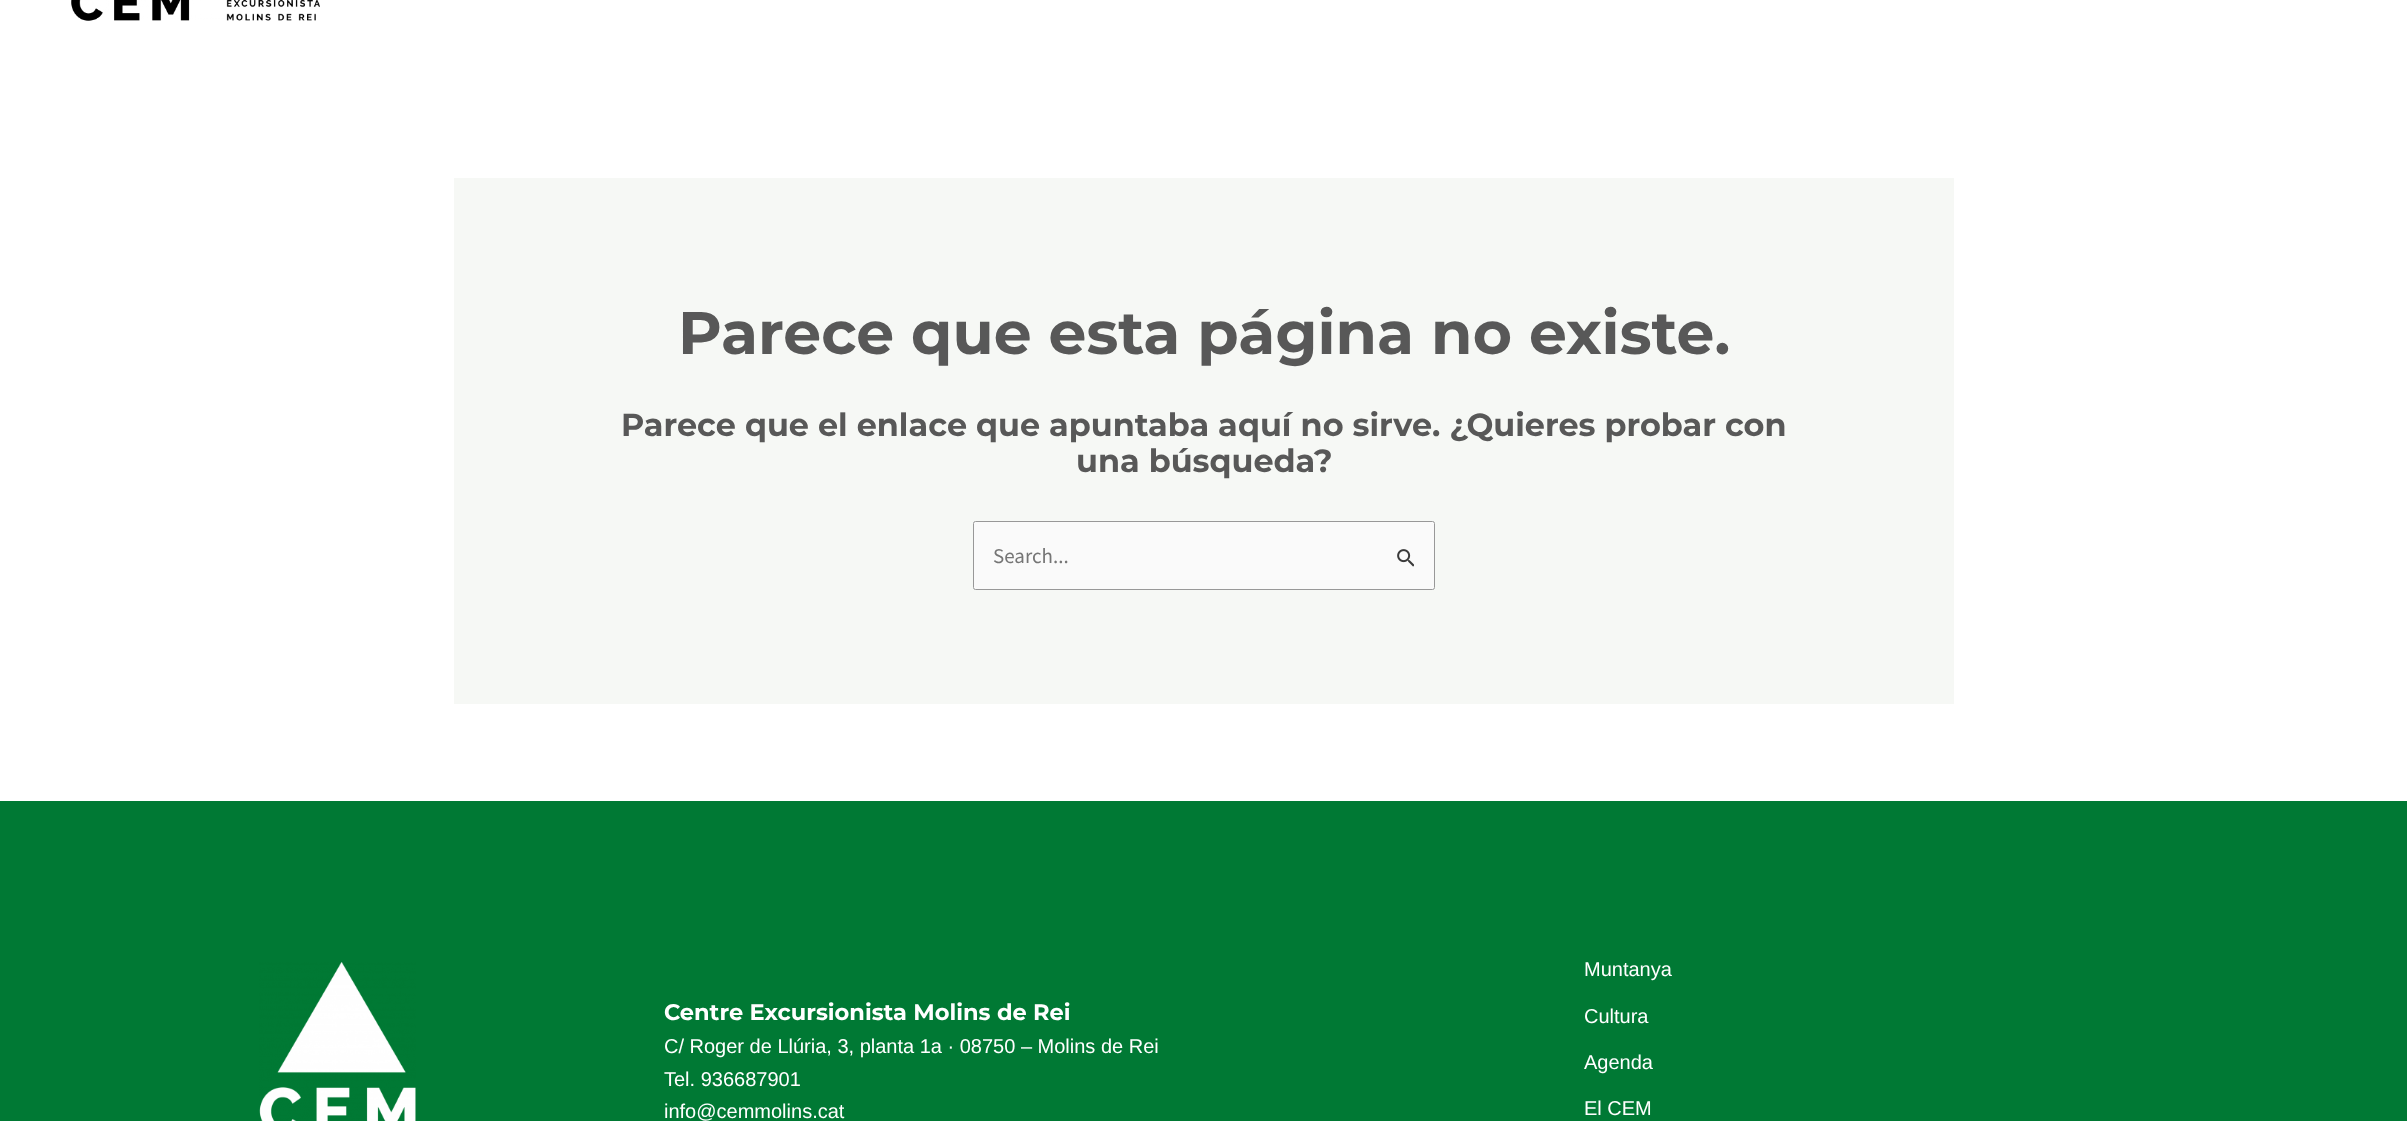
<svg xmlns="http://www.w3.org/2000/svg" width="2407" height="1121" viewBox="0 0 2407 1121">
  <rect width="100%" height="100%" fill="rgb(255,255,255)"/>
  <image x="71" y="0" width="249" height="21" href="pic1.png"/>
  <rect x="454" y="178" width="1500" height="526" fill="rgb(246,248,245)"/>
  <text x="678" y="354" font-family="Montserrat" font-size="60" font-weight="bold" fill="rgb(88,88,88)">Parece que esta página no existe.</text>
  <g font-family="Montserrat" font-size="31.9" font-weight="bold" fill="rgb(88,88,88)">
    <text x="621" y="436">Parece que el enlace que apuntaba aquí no sirve. ¿Quieres probar con</text>
    <text x="1076" y="472">una búsqueda?</text>
  </g>
  <rect x="973.5" y="521.5" width="461" height="68" rx="2" fill="rgb(250,250,250)" stroke="rgb(152,152,152)"/>
  <text x="993" y="563" font-family="Source Sans Pro" font-size="21" fill="rgb(117,117,117)">Search...</text>
  <image x="1397" y="549" width="17" height="18" href="pic2.png"/>
  <rect x="0" y="801" width="2407" height="320" fill="rgb(0,121,52)"/>
  <image x="259" y="962" width="157" height="159" href="pic3.png"/>
  <text x="664" y="1020" font-family="Montserrat" font-size="22.5" font-weight="bold" fill="rgb(255,255,255)">Centre Excursionista Molins de Rei</text>
  <g font-family="Liberation Sans" font-size="20" fill="rgb(255,255,255)">
    <text>
      <tspan x="664" y="1053">C/ Roger de Llúria, 3, planta 1a · 08750 – Molins de Rei</tspan>
      <tspan x="664" y="1086">Tel. 936687901</tspan>
      <tspan x="664" y="1118">info@cemmolins.cat</tspan>
    </text>
    <text x="1584" y="976">Muntanya</text>
    <text x="1584" y="1023">Cultura</text>
    <text x="1584" y="1069">Agenda</text>
    <text x="1584" y="1115">El CEM</text>
  </g>
</svg>
